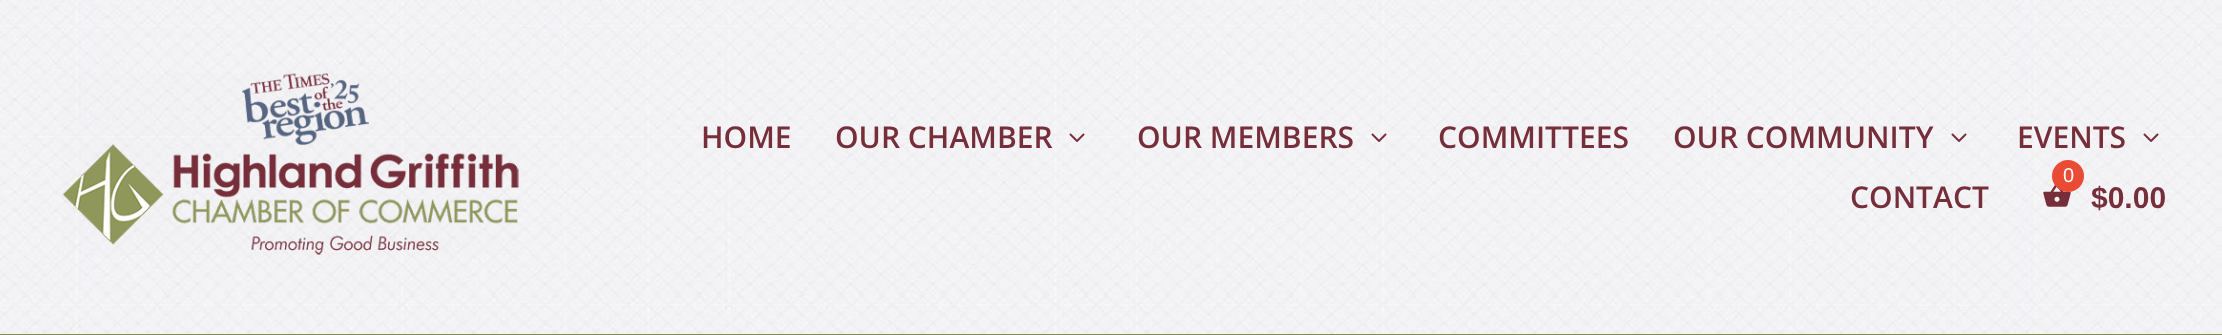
<svg xmlns="http://www.w3.org/2000/svg" width="2222" height="335" viewBox="0 0 2222 335">
  <rect width="100%" height="100%" fill="rgb(255,255,255)"/>
  <image x="0" y="0" width="2222" height="334" href="pic1.png"/>
  <image x="62" y="73" width="457" height="182" href="pic2.png"/>
  <g font-family="Open Sans" font-size="30" font-weight="600" fill="rgb(118,46,58)">
    <text x="701" y="148">HOME</text>
    <text x="835" y="148">OUR CHAMBER</text>
  </g>
  <image x="1069" y="133" width="16" height="9" href="pic3.png"/>
  <text x="1137" y="148" font-family="Open Sans" font-size="30" font-weight="600" fill="rgb(118,46,58)">OUR MEMBERS</text>
  <image x="1371" y="133" width="16" height="9" href="pic4.png"/>
  <g font-family="Open Sans" font-size="30" font-weight="600" fill="rgb(118,46,58)">
    <text x="1438" y="148">COMMITTEES</text>
    <text x="1673" y="148">OUR COMMUNITY</text>
  </g>
  <image x="1951" y="133" width="16" height="9" href="pic5.png"/>
  <text x="2017" y="148" font-family="Open Sans" font-size="30" font-weight="600" fill="rgb(118,46,58)">EVENTS</text>
  <image x="2143" y="133" width="16" height="9" href="pic6.png"/>
  <text x="1850" y="208" font-family="Open Sans" font-size="30" font-weight="600" fill="rgb(118,46,58)">CONTACT</text>
  <image x="2043" y="185" width="28" height="22" href="pic7.png"/>
  <circle cx="2068" cy="176" r="16" fill="rgb(233,75,53)"/>
  <text x="2063" y="182" font-family="Liberation Sans" font-size="20" fill="rgb(255,255,255)">0</text>
  <text x="2091" y="208" font-family="Liberation Sans" font-size="30" font-weight="bold" fill="rgb(118,46,58)">$0.00</text>
  <rect x="0" y="334" width="2222" height="1" fill="rgb(136,138,84)"/>
</svg>
